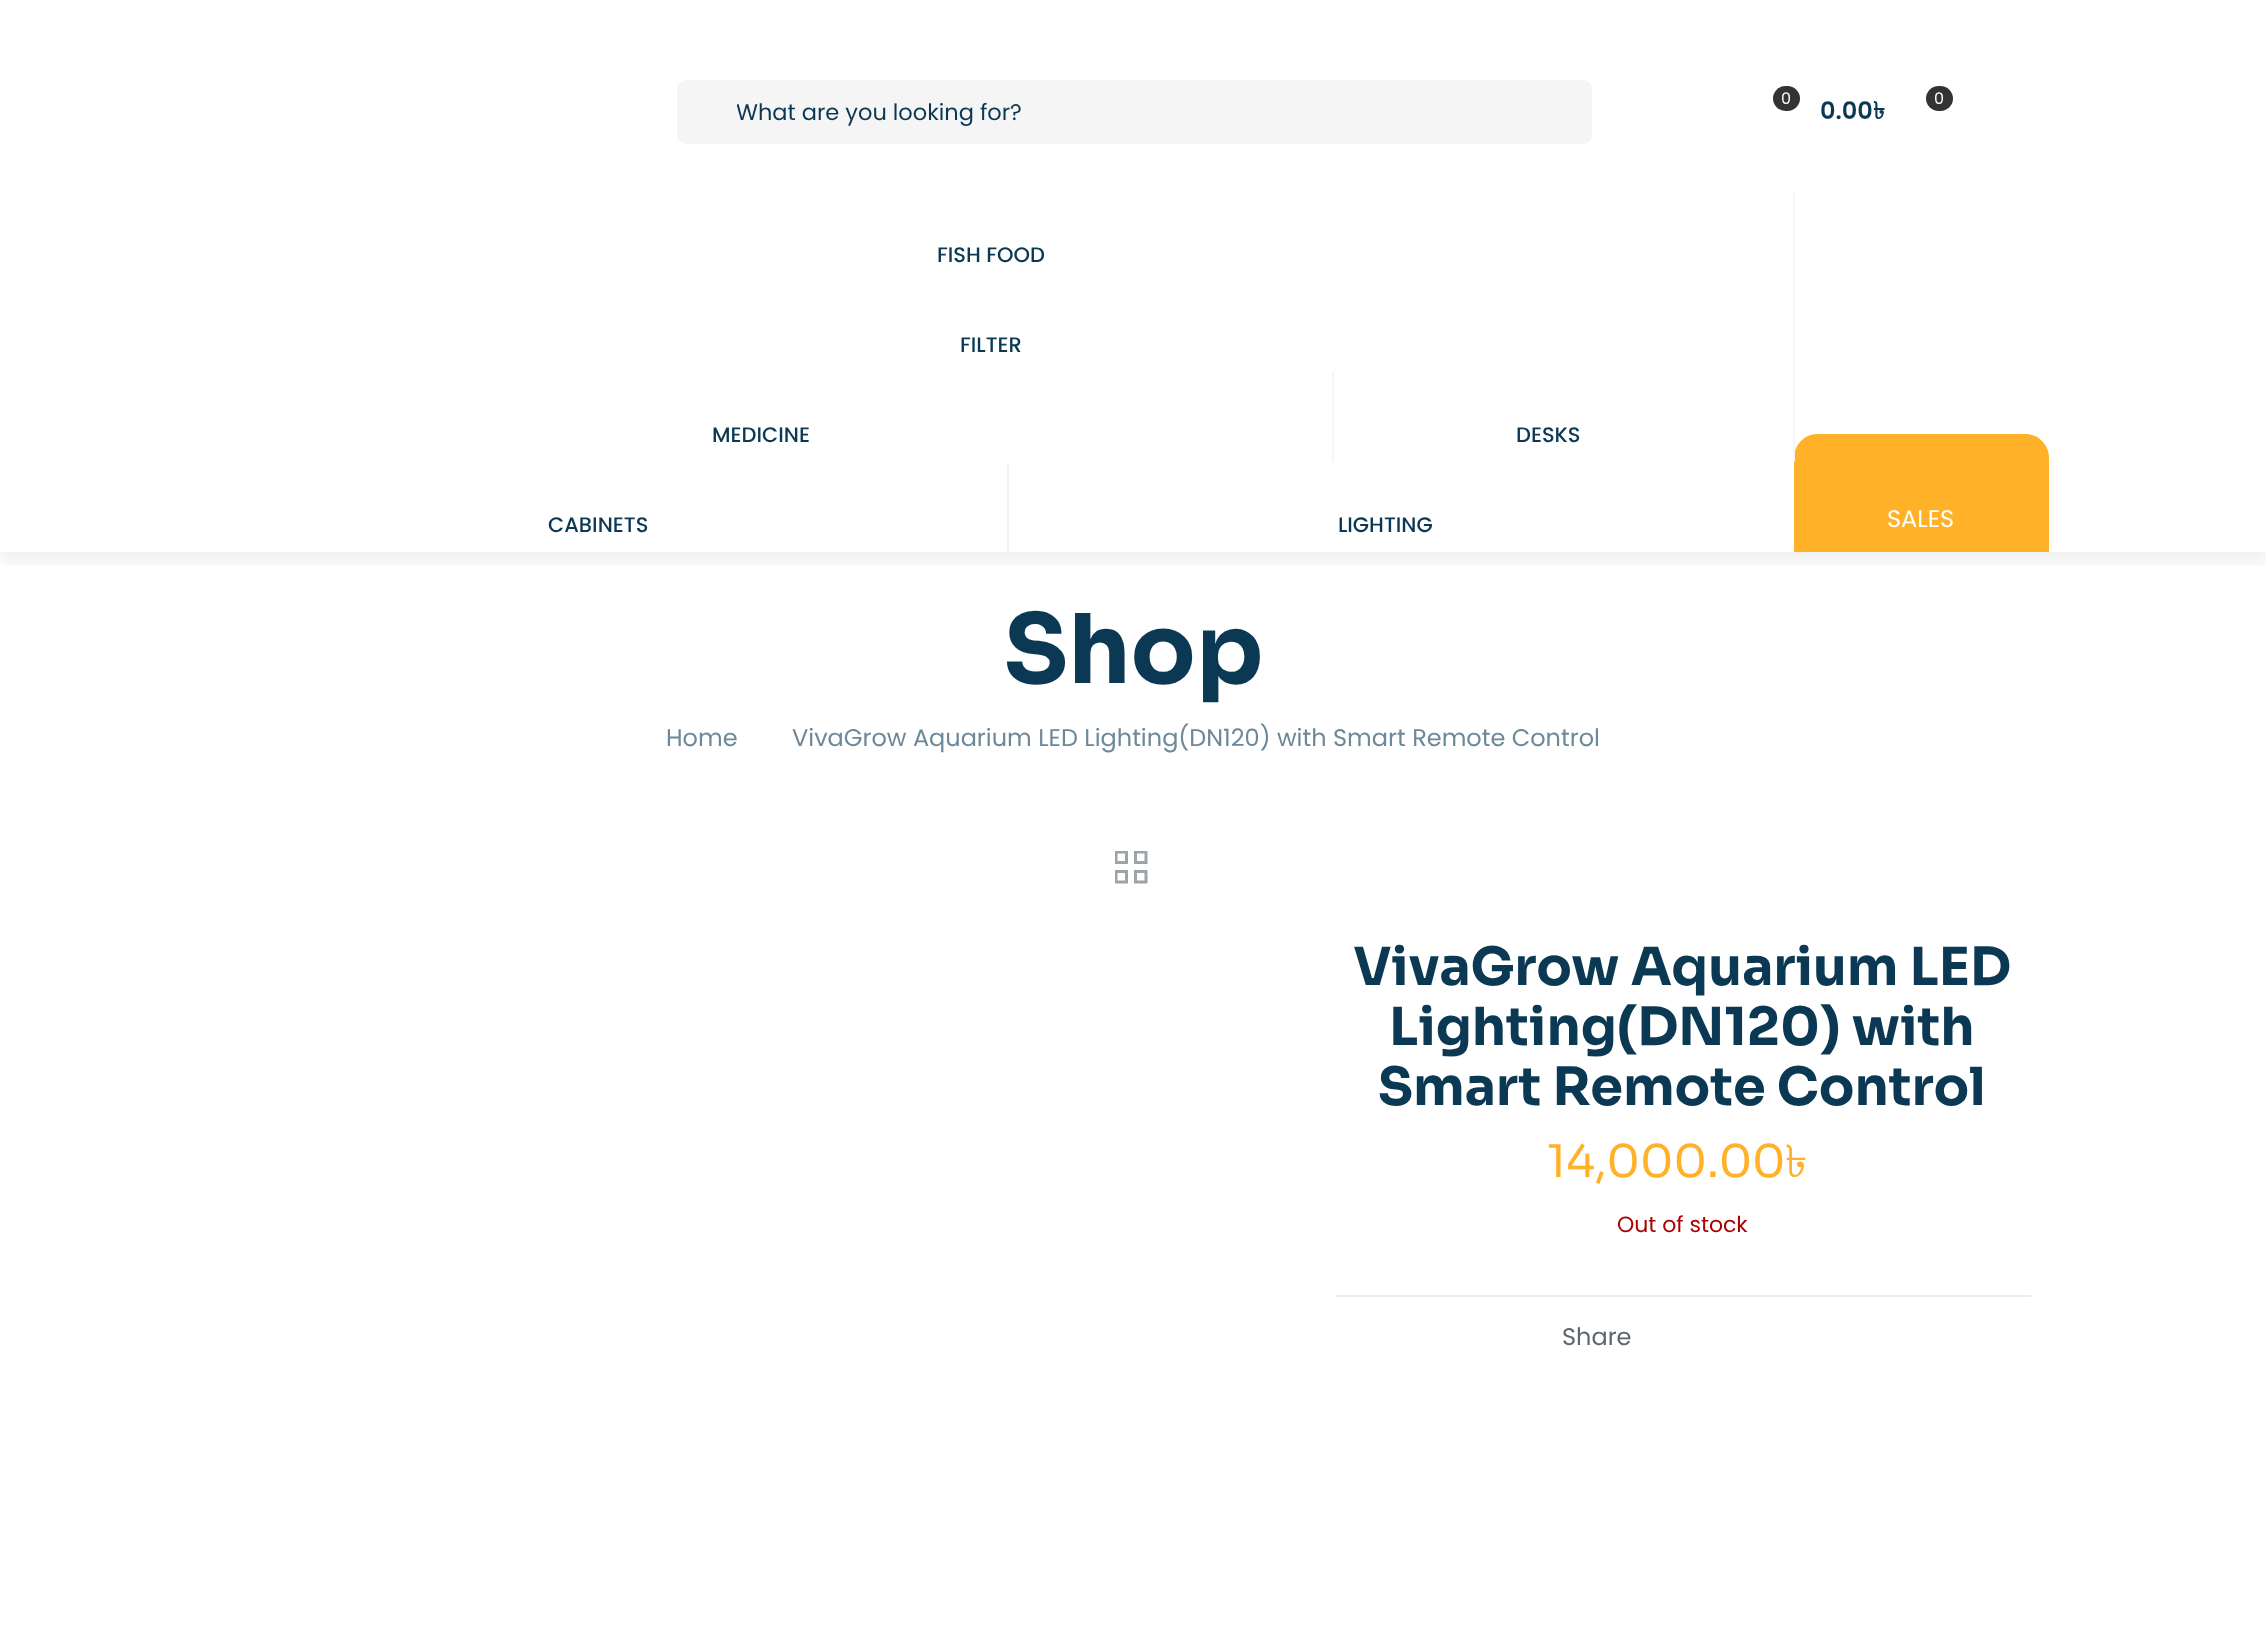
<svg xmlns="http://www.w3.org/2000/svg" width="2266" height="1636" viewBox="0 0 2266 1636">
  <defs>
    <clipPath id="clip1"><rect x="737" y="95" width="840" height="34"/></clipPath>
    <clipPath id="clip2"><rect x="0" y="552" width="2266" height="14"/></clipPath>
  </defs>
  <rect width="100%" height="100%" fill="rgb(255,255,255)"/>
  <rect x="677" y="80" width="915" height="64" rx="9" fill="rgb(245,245,245)"/>
  <g clip-path="url(#clip1)">
    <text x="736" y="120" font-family="Poppins" font-size="22.5" fill="rgb(11,57,84)">What are you looking for?</text>
  </g>
  <rect x="1773" y="86" width="27" height="25" rx="12.5" fill="rgb(51,51,51)"/>
  <text x="1781" y="104" font-family="Poppins" font-size="16" fill="rgb(255,255,255)">0</text>
  <text x="1820" y="119" font-family="Poppins" font-size="24" font-weight="600" fill="rgb(11,57,84)">0.00</text>
  <text x="1873" y="119" font-family="Lohit Bengali" font-size="24" font-weight="bold" fill="rgb(11,57,84)">৳</text>
  <rect x="1926" y="86" width="27" height="25" rx="12.5" fill="rgb(51,51,51)"/>
  <text x="1934" y="104" font-family="Poppins" font-size="16" fill="rgb(255,255,255)">0</text>
  <g clip-path="url(#clip2)">
    <rect x="0" y="204" width="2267" height="360" fill="rgba(0,0,0,0.05)" filter="blur(6px)"/>
  </g>
  <text x="937" y="262" font-family="Poppins" font-size="21" font-weight="500" fill="rgb(11,57,84)">FISH FOOD</text>
  <path d="M1818 434H2025C2038.5 434 2049 444.5 2049 458V552H1794V458C1794 444.5 1804.5 434 1818 434Z" fill="rgb(255,177,40)"/>
  <rect x="1793" y="192" width="2" height="270" fill="rgb(245,245,245)"/>
  <g font-family="Poppins" font-size="21" font-weight="500" fill="rgb(11,57,84)">
    <text x="960" y="352">FILTER</text>
    <text x="712" y="442">MEDICINE</text>
  </g>
  <rect x="1332" y="372" width="2" height="90" fill="rgb(245,245,245)"/>
  <g font-family="Poppins" font-size="21" font-weight="500" fill="rgb(11,57,84)">
    <text x="1516" y="442">DESKS</text>
    <text x="548" y="532">CABINETS</text>
  </g>
  <rect x="1007" y="462" width="2" height="90" fill="rgb(245,245,245)"/>
  <text x="1338" y="532" font-family="Poppins" font-size="21" font-weight="500" fill="rgb(11,57,84)">LIGHTING</text>
  <text x="1887" y="527" font-family="Poppins" font-size="24" fill="rgb(255,255,255)">SALES</text>
  <text x="1004" y="683" font-family="Sora" font-size="96" font-weight="bold" fill="rgb(11,57,84)">Shop</text>
  <g font-family="Poppins" font-size="24" fill="rgb(109,136,152)">
    <text x="666" y="746">Home</text>
    <text x="792" y="746">VivaGrow Aquarium LED Lighting(DN120) with Smart Remote Control</text>
  </g>
  <image x="1115" y="851" width="33" height="33" href="pic1.png"/>
  <g font-family="Sora" font-size="52.5" font-weight="bold" fill="rgb(11,57,84)">
    <text x="1353" y="985">VivaGrow Aquarium LED</text>
    <text x="1389" y="1045">Lighting(DN120) with</text>
    <text x="1378" y="1105">Smart Remote Control</text>
  </g>
  <text x="1547" y="1177" font-family="Sora" font-size="45" fill="rgb(255,177,40)">14,000.00</text>
  <text x="1785" y="1177" font-family="Lohit Bengali" font-size="45" fill="rgb(255,177,40)">৳</text>
  <text x="1617" y="1232" font-family="Poppins" font-size="22" fill="rgb(170,0,0)">Out of stock</text>
  <rect x="1335" y="1295" width="696" height="2" fill="rgb(235,235,235)"/>
  <text x="1562" y="1345" font-family="Poppins" font-size="24" fill="rgb(92,103,109)">Share</text>
</svg>
